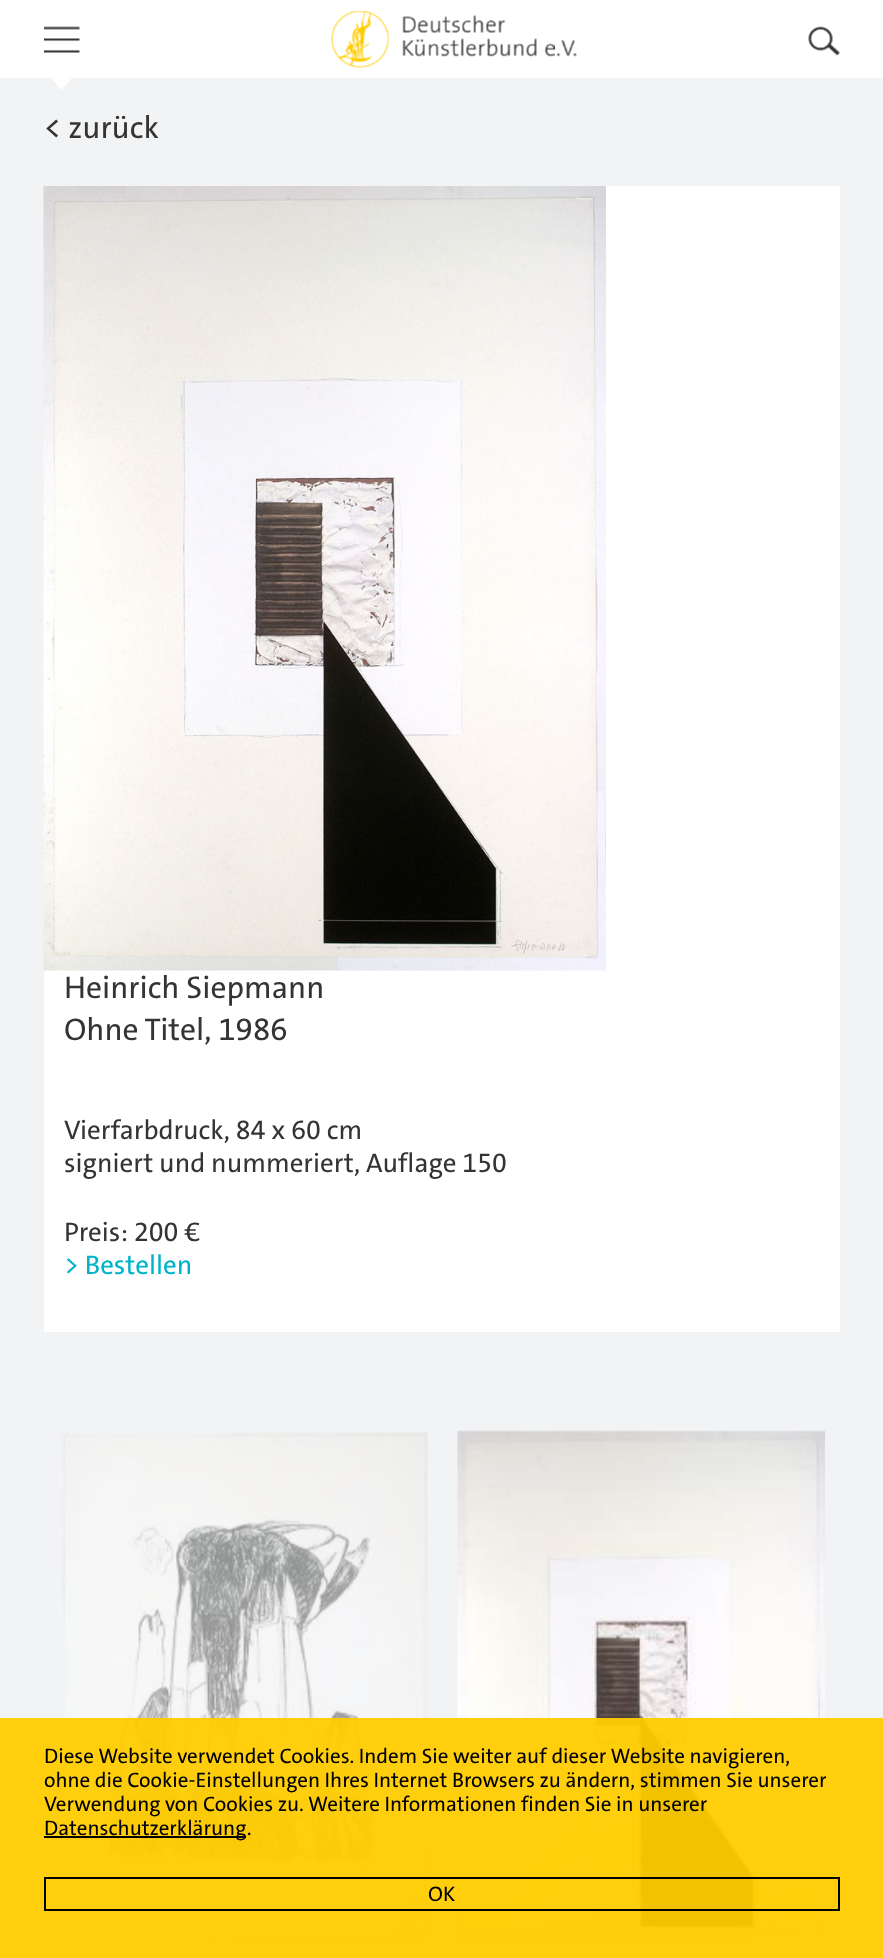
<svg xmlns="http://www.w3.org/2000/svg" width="883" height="1958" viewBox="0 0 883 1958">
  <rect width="100%" height="100%" fill="rgb(242,243,244)"/>
  <rect x="0" y="0" width="883" height="78" fill="rgb(255,255,255)"/>
  <image x="44" y="26" width="36" height="27" href="pic1.png"/>
  <image x="331" y="11" width="246" height="57" href="pic2.png"/>
  <image x="808" y="26" width="32" height="30" href="pic3.png"/>
  <image x="51" y="78" width="20" height="12" href="pic4.png"/>
  <text x="44" y="138" font-family="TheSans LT" font-size="31.5" fill="rgb(52,52,52)">&lt; zurück</text>
  <rect x="44" y="186" width="796" height="1146" fill="rgb(255,255,255)"/>
  <image x="43" y="186" width="563" height="785" href="pic5.png"/>
  <g font-family="TheSans LT" font-size="31.5" fill="rgb(52,52,52)">
    <text>
      <tspan x="64" y="998">Heinrich Siepmann</tspan>
      <tspan x="64" y="1040">Ohne Titel, 1986</tspan>
    </text>
  </g>
  <g font-family="TheSans LT" font-size="27" fill="rgb(52,52,52)">
    <text>
      <tspan x="64" y="1139">Vierfarbdruck, 84 x 60 cm</tspan>
      <tspan x="64" y="1172">signiert und nummeriert, Auflage 150</tspan>
    </text>
    <text x="64" y="1241">Preis: 200 €</text>
  </g>
  <text x="64" y="1274" font-family="TheSans LT" font-size="27" fill="rgb(0,180,200)">&gt; Bestellen</text>
  <image x="60" y="1432" width="368" height="510" href="pic6.png"/>
  <image x="457" y="1430" width="368" height="515" href="pic7.png"/>
  <rect x="0" y="1718" width="883" height="240" fill="rgba(255,204,0,0.95)"/>
  <g font-family="TheSans LT" font-size="21" fill="rgb(0,0,0)">
    <text>
      <tspan x="44" y="1763">Diese Website verwendet Cookies. Indem Sie weiter auf dieser Website navigieren,</tspan>
      <tspan x="44" y="1787">ohne die Cookie-Einstellungen Ihres Internet Browsers zu ändern, stimmen Sie unserer</tspan>
      <tspan x="44" y="1811">Verwendung von Cookies zu. Weitere Informationen finden Sie in unserer</tspan>
    </text>
  </g>
  <rect x="44" y="1836" width="202" height="2" fill="rgb(0,0,0)"/>
  <text x="44" y="1835" font-family="TheSans LT" font-size="21" fill="rgb(0,0,0)">Datenschutzerklärung.</text>
  <rect x="45" y="1878" width="794" height="32" fill="none" stroke="rgb(0,0,0)" stroke-width="2"/>
  <text x="428" y="1901" font-family="TheSans LT" font-size="21" fill="rgb(0,0,0)">OK</text>
</svg>
